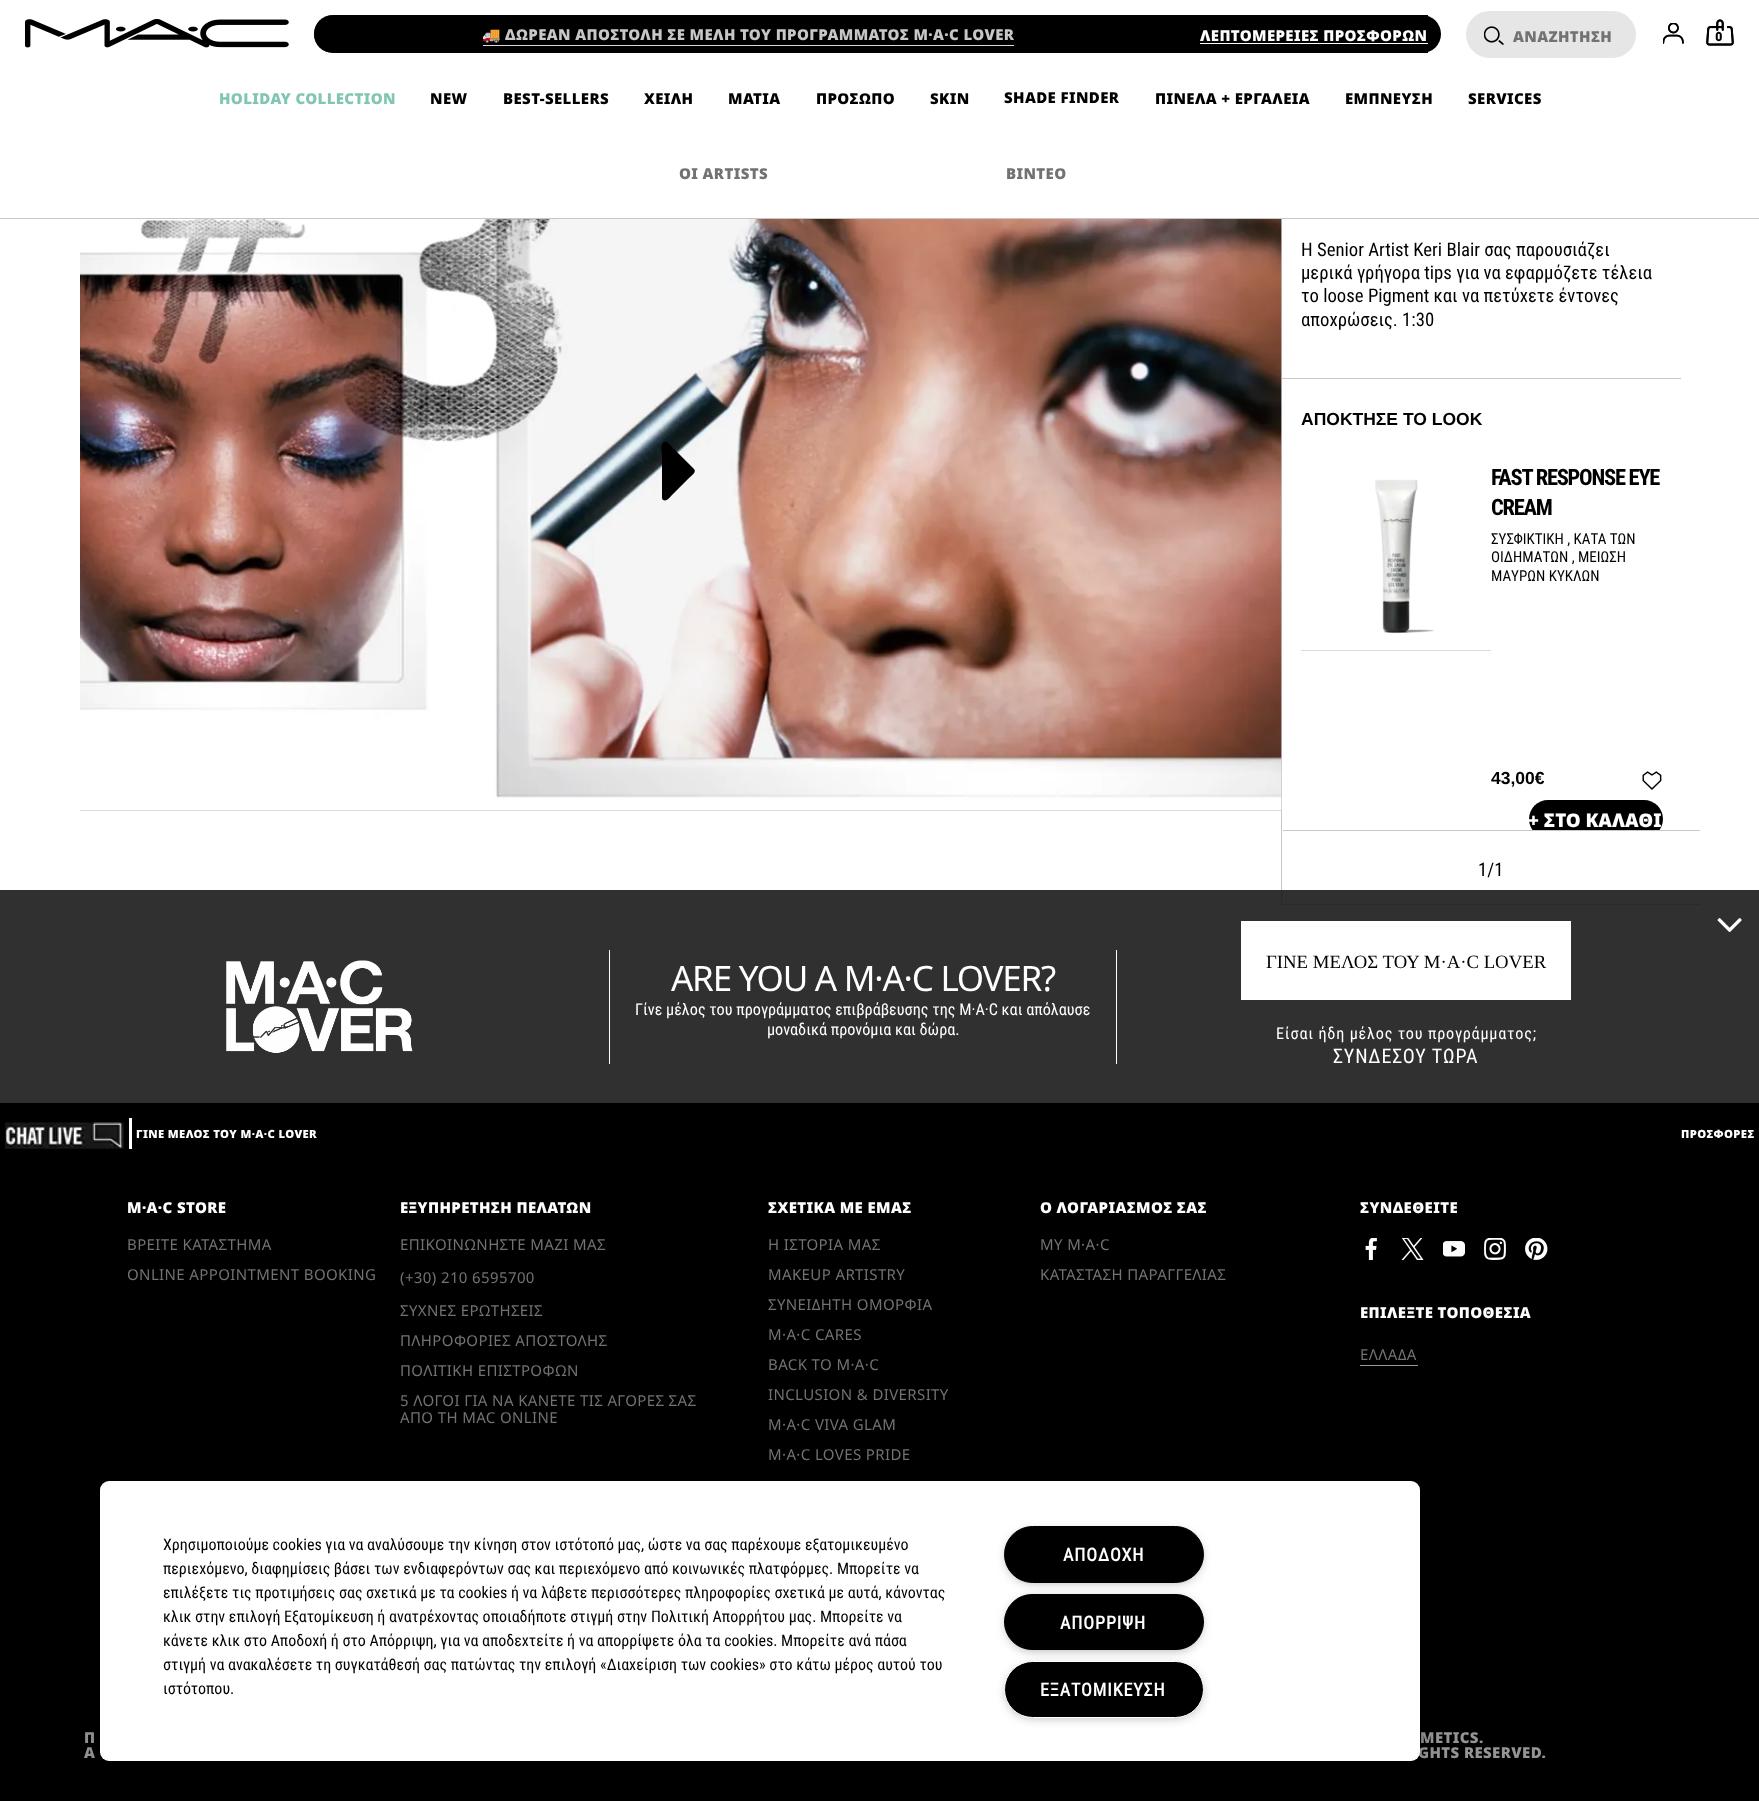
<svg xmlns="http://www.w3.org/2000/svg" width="1759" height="1801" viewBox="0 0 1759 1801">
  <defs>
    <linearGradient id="g1" gradientUnits="userSpaceOnUse" x1="314" y1="34" x2="339" y2="34"><stop offset="0" stop-color="rgb(0,0,0)" stop-opacity="0.9"/><stop offset="1" stop-color="rgb(0,0,0)" stop-opacity="0.1"/></linearGradient>
    <clipPath id="clip1"><rect x="1301" y="443" width="380" height="387"/></clipPath>
  </defs>
  <rect width="100%" height="100%" fill="rgb(255,255,255)"/>
  <rect x="0" y="890" width="1759" height="213" fill="rgb(48,48,48)"/>
  <image x="25" y="19" width="264" height="29" href="pic1.png"/>
  <rect x="314" y="15" width="1127" height="38" rx="19" fill="rgb(0,0,0)"/>
  <path d="M333 15H339V53H333C322.5 53 314 44.5 314 34C314 23.5 322.5 15 333 15Z" fill="url(#g1)"/>
  <text x="482" y="40" font-family="Noto Color Emoji" font-size="15" font-weight="bold" letter-spacing="0.38" fill="rgb(199,199,199)">🚚</text>
  <text x="505" y="40" font-family="Noto Sans" font-size="15" font-weight="900" letter-spacing="0.38" fill="rgb(199,199,199)">ΔΩΡΕΑΝ ΑΠΟΣΤΟΛΗ ΣΕ ΜΕΛΗ ΤΟΥ ΠΡΟΓΡΑΜΜΑΤΟΣ M·A·C LOVER</text>
  <rect x="483" y="45" width="531" height="1" fill="rgb(219,219,219)"/>
  <rect x="1422" y="15" width="6" height="38" fill="rgb(0,0,0)"/>
  <text x="1200" y="41" font-family="Noto Sans" font-size="15" font-weight="900" letter-spacing="0.38" fill="rgb(255,255,255)">ΛΕΠΤΟΜΕΡΕΙΕΣ ΠΡΟΣΦΟΡΩΝ</text>
  <rect x="1200" y="43" width="228" height="1" fill="rgb(255,255,255)"/>
  <rect x="1466" y="11" width="170" height="47" rx="23.5" fill="rgb(230,230,230)"/>
  <image x="1484" y="26" width="20" height="19" href="pic2.png"/>
  <text x="1513" y="42" font-family="Noto Sans" font-size="15" font-weight="900" letter-spacing="0.38" fill="rgb(114,114,114)">ΑΝΑΖΗΤΗΣΗ</text>
  <image x="1663" y="23" width="21" height="21" href="pic3.png"/>
  <image x="1663" y="23" width="21" height="21" href="pic4.png"/>
  <image x="1706" y="19" width="28" height="27" href="pic5.png"/>
  <image x="1706" y="19" width="28" height="27" href="pic6.png"/>
  <text x="1715" y="41" font-family="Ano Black" font-size="12" font-weight="900" fill="rgb(0,0,0)">0</text>
  <text x="219" y="104" font-family="Noto Sans" font-size="15" font-weight="900" letter-spacing="0.38" fill="rgb(129,197,179)">HOLIDAY COLLECTION</text>
  <g font-family="Noto Sans" font-size="15" font-weight="900" letter-spacing="0.38" fill="rgb(0,0,0)">
    <text x="430" y="104">NEW</text>
    <text x="503" y="104">BEST-SELLERS</text>
    <text x="644" y="104">ΧΕΙΛΗ</text>
    <text x="728" y="104">ΜΑΤΙΑ</text>
    <text x="816" y="104">ΠΡΟΣΩΠΟ</text>
    <text x="930" y="104">SKIN</text>
    <text x="1004" y="103">SHADE FINDER</text>
    <text x="1155" y="104">ΠΙΝΕΛΑ + ΕΡΓΑΛΕΙΑ</text>
    <text x="1345" y="104">ΕΜΠΝΕΥΣΗ</text>
    <text x="1468" y="104">SERVICES</text>
  </g>
  <rect x="0" y="218" width="1759" height="1" fill="rgb(199,199,199)"/>
  <g font-family="Noto Sans" font-size="15" font-weight="900" letter-spacing="0.38" fill="rgb(114,114,114)">
    <text x="679" y="179">ΟΙ ARTISTS</text>
    <text x="1006" y="179">ΒΙΝΤΕΟ</text>
  </g>
  <rect x="80" y="810" width="1201" height="1" fill="rgb(219,219,219)"/>
  <rect x="1281" y="378" width="400" height="1" fill="rgb(199,199,199)"/>
  <rect x="1281" y="219" width="1" height="671" fill="rgb(199,199,199)"/>
  <image x="80" y="219" width="1202" height="591" href="pic7.png"/>
  <path d="M662 497V454C662 452 660 444 664 442C667 441 671 446 672 447L694 469C697 472 691 476 689 478L672 495C670 497 667 502 663 500C662 499 662 498 662 497Z" fill="rgb(0,0,0)"/>
  <g font-family="Roboto Condensed" font-size="18.75" fill="rgb(0,0,0)">
    <text>
      <tspan x="1301" y="256">Η Senior Artist Keri Blair σας παρουσιάζει</tspan>
      <tspan x="1301" y="279">μερικά γρήγορα tips για να εφαρμόζετε τέλεια</tspan>
      <tspan x="1301" y="302">το loose Pigment και να πετύχετε έντονες</tspan>
      <tspan x="1301" y="326">αποχρώσεις. 1:30</tspan>
    </text>
  </g>
  <rect x="1281" y="890" width="1" height="15" fill="rgb(42,42,42)"/>
  <text x="1301" y="425" font-family="Liberation Sans" font-size="17.5" font-weight="bold" fill="rgb(0,0,0)">ΑΠΟΚΤΗΣΕ ΤΟ LOOK</text>
  <rect x="1301" y="650" width="190" height="1" fill="rgb(219,219,219)"/>
  <image x="1375" y="479" width="59" height="155" href="pic8.png"/>
  <g font-family="Roboto Condensed" font-size="22.5" font-weight="bold" letter-spacing="-1.25" fill="rgb(0,0,0)">
    <text>
      <tspan x="1491" y="485">FAST RESPONSE EYE</tspan>
      <tspan x="1491" y="515">CREAM</tspan>
    </text>
  </g>
  <g font-family="Roboto Condensed" font-size="15" fill="rgb(0,0,0)">
    <text>
      <tspan x="1491" y="544">ΣΥΣΦΙΚΤΙΚΗ , ΚΑΤΑ ΤΩΝ</tspan>
      <tspan x="1491" y="562">ΟΙΔΗΜΑΤΩΝ , ΜΕΙΩΣΗ</tspan>
      <tspan x="1491" y="581">ΜΑΥΡΩΝ ΚΥΚΛΩΝ</tspan>
    </text>
  </g>
  <text x="1491" y="784" font-family="Liberation Sans" font-size="17.5" font-weight="bold" fill="rgb(0,0,0)">43,00€</text>
  <image x="1642" y="771" width="20" height="19" href="pic9.png"/>
  <g clip-path="url(#clip1)">
    <rect x="1529" y="800" width="134" height="38" rx="19" fill="rgb(0,0,0)"/>
  </g>
  <text x="1528" y="827" font-family="Noto Sans" font-size="18.75" font-weight="900" fill="rgb(255,255,255)">+ ΣΤΟ ΚΑΛΑΘΙ</text>
  <rect x="1283" y="830" width="417" height="1" fill="rgb(199,199,199)"/>
  <rect x="1283" y="904" width="417" height="1" fill="rgb(42,42,42)"/>
  <text x="1478" y="876" font-family="Roboto Condensed" font-size="18.75" fill="rgb(0,0,0)">1/1</text>
  <image x="1717" y="918" width="25" height="15" href="pic10.png"/>
  <image x="226" y="960" width="187" height="93" href="pic11.png"/>
  <rect x="1116" y="950" width="1" height="114" fill="rgb(255,255,255)"/>
  <rect x="609" y="950" width="1" height="114" fill="rgb(255,255,255)"/>
  <text x="671" y="991" font-family="Noto Sans" font-size="35" letter-spacing="-1.25" fill="rgb(255,255,255)">ARE YOU A M·A·C LOVER?</text>
  <g font-family="Roboto Condensed" font-size="16.25" fill="rgb(255,255,255)">
    <text x="635" y="1015">Γίνε μέλος του προγράμματος επιβράβευσης της M·A·C και απόλαυσε</text>
    <text x="767" y="1035">μοναδικά προνόμια και δώρα.</text>
  </g>
  <rect x="1241" y="921" width="330" height="79" fill="rgb(255,255,255)"/>
  <text x="1266" y="968" font-family="Liberation Serif" font-size="18.75" fill="rgb(0,0,0)">ΓΙΝΕ ΜΕΛΟΣ ΤΟΥ M·A·C LOVER</text>
  <text x="1276" y="1039" font-family="Roboto Condensed" font-size="16.25" letter-spacing="0.8" fill="rgb(255,255,255)">Είσαι ήδη μέλος του προγράμματος;</text>
  <text x="1333" y="1063" font-family="Roboto Condensed" font-size="20" letter-spacing="0.8" fill="rgb(255,255,255)">ΣΥΝΔΕΣΟΥ ΤΩΡΑ</text>
  <rect x="0" y="1103" width="1759" height="698" fill="rgb(0,0,0)"/>
  <image x="5" y="1122" width="119" height="27" href="pic12.png"/>
  <rect x="129" y="1118" width="3" height="31" fill="rgb(255,255,255)"/>
  <g font-family="Noto Sans" font-size="11.25" font-weight="900" letter-spacing="0.38" fill="rgb(255,255,255)">
    <text x="136" y="1138">ΓΙΝΕ ΜΕΛΟΣ ΤΟΥ M·A·C LOVER</text>
    <text x="1681" y="1138">ΠΡΟΣΦΟΡΕΣ</text>
  </g>
  <text x="127" y="1213" font-family="Noto Sans" font-size="15" font-weight="900" letter-spacing="0.38" fill="rgb(255,255,255)">M·A·C STORE</text>
  <g font-family="Noto Sans" font-size="15" letter-spacing="0.38" fill="rgb(114,114,114)">
    <text x="127" y="1250">ΒΡΕΙΤΕ ΚΑΤΑΣΤΗΜΑ</text>
    <text x="127" y="1280">ONLINE APPOINTMENT BOOKING</text>
  </g>
  <text x="400" y="1213" font-family="Noto Sans" font-size="15" font-weight="900" letter-spacing="0.38" fill="rgb(255,255,255)">ΕΞΥΠΗΡΕΤΗΣΗ ΠΕΛΑΤΩΝ</text>
  <g font-family="Noto Sans" font-size="15" letter-spacing="0.38" fill="rgb(114,114,114)">
    <text x="400" y="1250">ΕΠΙΚΟΙΝΩΝΗΣΤΕ ΜΑΖΙ ΜΑΣ</text>
    <text x="400" y="1283">(+30) 210 6595700</text>
    <text x="400" y="1316">ΣΥΧΝΕΣ ΕΡΩΤΗΣΕΙΣ</text>
    <text x="400" y="1346">ΠΛΗΡΟΦΟΡΙΕΣ ΑΠΟΣΤΟΛΗΣ</text>
    <text x="400" y="1376">ΠΟΛΙΤΙΚΗ ΕΠΙΣΤΡΟΦΩΝ</text>
    <text>
      <tspan x="400" y="1406">5 ΛΟΓΟΙ ΓΙΑ ΝΑ ΚΑΝΕΤΕ ΤΙΣ ΑΓΟΡΕΣ ΣΑΣ</tspan>
      <tspan x="400" y="1423">ΑΠΟ ΤΗ MAC ONLINE</tspan>
    </text>
  </g>
  <text x="768" y="1213" font-family="Noto Sans" font-size="15" font-weight="900" letter-spacing="0.38" fill="rgb(255,255,255)">ΣΧΕΤΙΚΑ ΜΕ ΕΜΑΣ</text>
  <g font-family="Noto Sans" font-size="15" letter-spacing="0.38" fill="rgb(114,114,114)">
    <text x="768" y="1250">Η ΙΣΤΟΡΙΑ ΜΑΣ</text>
    <text x="768" y="1280">MAKEUP ARTISTRY</text>
    <text x="768" y="1310">ΣΥΝΕΙΔΗΤΗ ΟΜΟΡΦΙΑ</text>
    <text x="768" y="1340">M·A·C CARES</text>
    <text x="768" y="1370">BACK TO M·A·C</text>
    <text x="768" y="1400">INCLUSION &amp; DIVERSITY</text>
    <text x="768" y="1430">M·A·C VIVA GLAM</text>
    <text x="768" y="1460">M·A·C LOVES PRIDE</text>
  </g>
  <text x="1040" y="1213" font-family="Noto Sans" font-size="15" font-weight="900" letter-spacing="0.38" fill="rgb(255,255,255)">Ο ΛΟΓΑΡΙΑΣΜΟΣ ΣΑΣ</text>
  <g font-family="Noto Sans" font-size="15" letter-spacing="0.38" fill="rgb(114,114,114)">
    <text x="1040" y="1250">MY M·A·C</text>
    <text x="1040" y="1280">ΚΑΤΑΣΤΑΣΗ ΠΑΡΑΓΓΕΛΙΑΣ</text>
  </g>
  <text x="1360" y="1213" font-family="Noto Sans" font-size="15" font-weight="900" letter-spacing="0.38" fill="rgb(255,255,255)">ΣΥΝΔΕΘΕΙΤΕ</text>
  <image x="1365" y="1238" width="12" height="22" href="pic13.png"/>
  <image x="1401" y="1238" width="23" height="22" href="pic14.png"/>
  <image x="1443" y="1241" width="22" height="16" href="pic15.png"/>
  <image x="1484" y="1238" width="22" height="22" href="pic16.png"/>
  <image x="1525" y="1238" width="23" height="22" href="pic17.png"/>
  <text x="1360" y="1318" font-family="Noto Sans" font-size="15" font-weight="900" letter-spacing="0.38" fill="rgb(255,255,255)">ΕΠΙΛΕΞΤΕ ΤΟΠΟΘΕΣΙΑ</text>
  <text x="1360" y="1360" font-family="Noto Sans" font-size="15" letter-spacing="0.38" fill="rgb(114,114,114)">ΕΛΛΑΔΑ</text>
  <rect x="1360" y="1365" width="58" height="1" fill="rgb(153,153,153)"/>
  <g font-family="Noto Sans" font-size="15" font-weight="900" letter-spacing="0.38" fill="rgb(148,148,148)">
    <text>
      <tspan x="84" y="1743">Π</tspan>
      <tspan x="84" y="1758">Α</tspan>
    </text>
    <text x="1420" y="1743">METICS.</text>
    <text x="1418" y="1758">GHTS RESERVED.</text>
  </g>
  <rect x="100" y="1481" width="1320" height="280" rx="9" fill="rgba(0,0,0,0.2)" filter="blur(11px)"/>
  <rect x="100" y="1481" width="1320" height="280" rx="9" fill="rgb(255,255,255)"/>
  <g font-family="Roboto Condensed" font-size="16" fill="rgb(0,0,0)">
    <text>
      <tspan x="163" y="1550">Χρησιμοποιούμε cookies για να αναλύσουμε την κίνηση στον ιστότοπό μας, ώστε να σας παρέχουμε εξατομικευμένο</tspan>
      <tspan x="163" y="1574">περιεχόμενο, διαφημίσεις βάσει των ενδιαφερόντων σας και περιεχόμενο από κοινωνικές πλατφόρμες. Μπορείτε να</tspan>
      <tspan x="163" y="1598">επιλέξετε τις προτιμήσεις σας σχετικά με τα cookies ή να λάβετε περισσότερες πληροφορίες σχετικά με αυτά, κάνοντας</tspan>
      <tspan x="163" y="1622">κλικ στην επιλογή Εξατομίκευση ή ανατρέχοντας οποιαδήποτε στιγμή στην Πολιτική Απορρήτου μας. Μπορείτε να</tspan>
      <tspan x="163" y="1646">κάνετε κλικ στο Αποδοχή ή στο Απόρριψη, για να αποδεχτείτε ή να απορρίψετε όλα τα cookies. Μπορείτε ανά πάσα</tspan>
      <tspan x="163" y="1670">στιγμή να ανακαλέσετε τη συγκατάθεσή σας πατώντας την επιλογή «Διαχείριση των cookies» στο κάτω μέρος αυτού του</tspan>
      <tspan x="163" y="1694">ιστότοπου.</tspan>
    </text>
  </g>
  <rect x="1008" y="1533" width="192" height="48" rx="24" fill="rgb(153,153,153)" filter="blur(6px)"/>
  <rect x="1004.5" y="1526.5" width="199" height="56" rx="28" fill="rgb(0,0,0)" stroke="rgb(0,0,0)"/>
  <text x="1063" y="1561" font-family="'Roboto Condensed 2'" font-size="18" font-weight="bold" letter-spacing="0.9" fill="rgb(255,255,255)">ΑΠΟΔΟΧΗ</text>
  <rect x="1008" y="1600" width="192" height="49" rx="24.5" fill="rgb(153,153,153)" filter="blur(6px)"/>
  <rect x="1004.5" y="1594.5" width="199" height="55" rx="27.5" fill="rgb(0,0,0)" stroke="rgb(0,0,0)"/>
  <text x="1060" y="1629" font-family="'Roboto Condensed 2'" font-size="18" font-weight="bold" letter-spacing="0.9" fill="rgb(255,255,255)">ΑΠΟΡΡΙΨΗ</text>
  <rect x="1008" y="1668" width="192" height="48" rx="24" fill="rgb(153,153,153)" filter="blur(6px)"/>
  <rect x="1004.5" y="1661.5" width="199" height="56" rx="28" fill="rgb(0,0,0)" stroke="rgb(255,255,255)"/>
  <text x="1040" y="1696" font-family="'Roboto Condensed 2'" font-size="18" font-weight="bold" letter-spacing="0.9" fill="rgb(255,255,255)">ΕΞΑΤΟΜΙΚΕΥΣΗ</text>
</svg>
